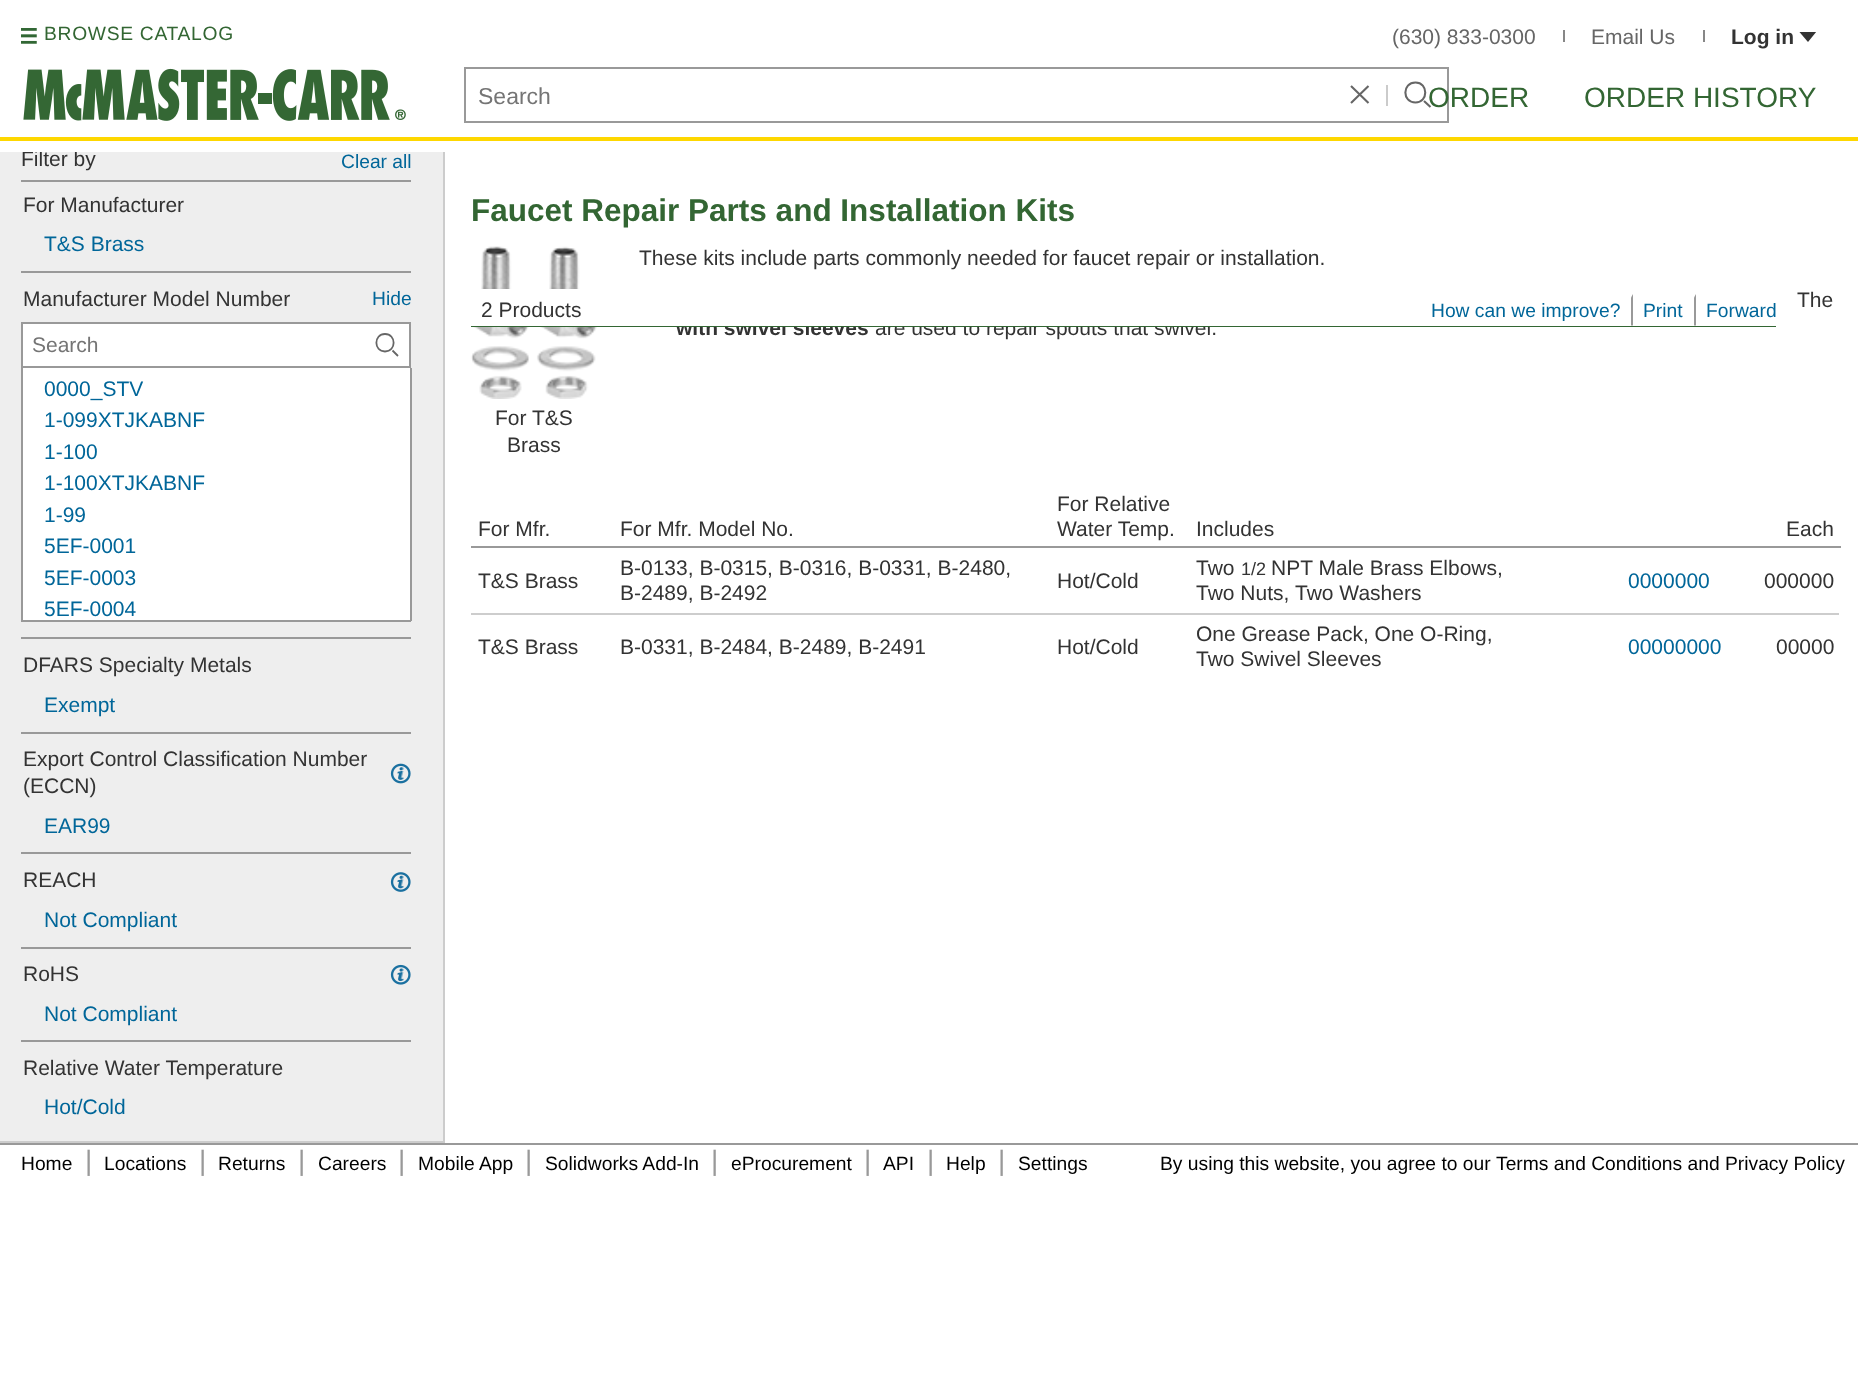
<svg xmlns="http://www.w3.org/2000/svg" width="1858" height="1374" viewBox="0 0 1858 1374">
  <defs>
    <clipPath id="clip1"><rect x="1799" y="32" width="18" height="10"/></clipPath>
  </defs>
  <rect width="100%" height="100%" fill="rgb(255,255,255)"/>
  <rect x="0" y="152" width="443" height="989" fill="rgb(238,238,238)"/>
  <text x="21" y="166" font-family="Liberation Sans" font-size="21" fill="rgb(51,51,51)">Filter by</text>
  <path d="M0 140V152H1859V12H1858V140Z" fill="rgb(255,255,255)"/>
  <rect x="0" y="137" width="1858" height="4" fill="rgb(254,215,0)"/>
  <image x="21" y="28" width="16" height="16" href="pic1.png"/>
  <text x="44" y="40" font-family="Liberation Sans" font-size="19.25" letter-spacing="0.7" fill="rgb(51,102,51)">BROWSE CATALOG</text>
  <text x="1392" y="44" font-family="Liberation Sans" font-size="21" fill="rgb(102,102,102)">(630) 833-0300</text>
  <rect x="1563" y="30" width="2" height="12" fill="rgb(135,135,135)"/>
  <text x="1591" y="44" font-family="Liberation Sans" font-size="21" fill="rgb(102,102,102)">Email Us</text>
  <rect x="1703" y="30" width="2" height="12" fill="rgb(135,135,135)"/>
  <text x="1731" y="44" font-family="Liberation Sans" font-size="21" font-weight="bold" fill="rgb(51,51,51)">Log in</text>
  <g clip-path="url(#clip1)">
    <path d="M1799 31.5L1808 42L1816.5 31.5Z" fill="rgb(51,51,51)"/>
  </g>
  <image x="23" y="68" width="383" height="53" href="pic2.png"/>
  <rect x="465" y="68" width="983" height="54" fill="none" stroke="rgb(153,153,153)" stroke-width="2"/>
  <text x="478" y="104" font-family="Liberation Sans" font-size="23" fill="rgb(117,117,117)">Search</text>
  <path d="M1351 86L1368.5 103M1368.5 86L1351 103" fill="none" stroke="rgb(102,102,102)" stroke-width="2.1"/>
  <rect x="1386" y="85" width="2" height="21" fill="rgb(203,203,203)"/>
  <path d="M1424 101L1430.5 107M1415.5 102.5C1428.5 102.5 1428.5 82.5 1415.5 82.5C1402 82.5 1402 102.5 1415.5 102.5Z" fill="none" stroke="rgb(102,102,102)" stroke-width="2.1"/>
  <g font-family="Liberation Sans" font-size="28" fill="rgb(51,102,51)">
    <text x="1428" y="107">ORDER</text>
    <text x="1584" y="107">ORDER HISTORY</text>
  </g>
  <rect x="443" y="152" width="2" height="991" fill="rgb(204,204,204)"/>
  <rect x="0" y="1141" width="445" height="2" fill="rgb(204,204,204)"/>
  <rect x="21" y="180" width="390" height="2" fill="rgb(153,153,153)"/>
  <text x="341" y="168" font-family="Liberation Sans" font-size="19.25" fill="rgb(0,102,153)">Clear all</text>
  <text x="23" y="212" font-family="Liberation Sans" font-size="21" fill="rgb(51,51,51)">For Manufacturer</text>
  <text x="44" y="251" font-family="Liberation Sans" font-size="21" fill="rgb(0,102,153)">T&amp;S Brass</text>
  <rect x="21" y="271" width="390" height="2" fill="rgb(153,153,153)"/>
  <text x="23" y="306" font-family="Liberation Sans" font-size="21" fill="rgb(51,51,51)">Manufacturer Model Number</text>
  <text x="372" y="305" font-family="Liberation Sans" font-size="19.25" fill="rgb(0,102,153)">Hide</text>
  <rect x="22" y="323" width="388" height="44" fill="rgb(255,255,255)" stroke="rgb(153,153,153)" stroke-width="2"/>
  <text x="32" y="352" font-family="Liberation Sans" font-size="21" fill="rgb(117,117,117)">Search</text>
  <path d="M392.5 350.5L398 356M385 351.5C396.5 351.5 396.5 334 385 334C373.5 334 373.5 351.5 385 351.5Z" fill="none" stroke="rgb(102,102,102)" stroke-width="1.8"/>
  <rect x="23" y="368" width="387" height="252" fill="rgb(255,255,255)"/>
  <rect x="410" y="368" width="2" height="253" fill="rgb(153,153,153)"/>
  <rect x="21" y="620" width="390" height="2" fill="rgb(153,153,153)"/>
  <rect x="21" y="368" width="2" height="253" fill="rgb(153,153,153)"/>
  <g font-family="Liberation Sans" font-size="21" fill="rgb(0,102,153)">
    <text>
      <tspan x="44" y="396">0000_STV</tspan>
      <tspan x="44" y="427">1-099XTJKABNF</tspan>
      <tspan x="44" y="459">1-100</tspan>
      <tspan x="44" y="490">1-100XTJKABNF</tspan>
      <tspan x="44" y="522">1-99</tspan>
      <tspan x="44" y="553">5EF-0001</tspan>
      <tspan x="44" y="585">5EF-0003</tspan>
      <tspan x="44" y="616">5EF-0004</tspan>
    </text>
  </g>
  <rect x="21" y="637" width="390" height="2" fill="rgb(153,153,153)"/>
  <text x="23" y="672" font-family="Liberation Sans" font-size="21" fill="rgb(51,51,51)">DFARS Specialty Metals</text>
  <text x="44" y="712" font-family="Liberation Sans" font-size="21" fill="rgb(0,102,153)">Exempt</text>
  <rect x="21" y="732" width="390" height="2" fill="rgb(153,153,153)"/>
  <g font-family="Liberation Sans" font-size="21" fill="rgb(51,51,51)">
    <text>
      <tspan x="23" y="766">Export Control Classification Number</tspan>
      <tspan x="23" y="793">(ECCN)</tspan>
    </text>
  </g>
  <image x="390" y="763" width="21" height="21" href="pic3.png"/>
  <text x="44" y="833" font-family="Liberation Sans" font-size="21" fill="rgb(0,102,153)">EAR99</text>
  <rect x="21" y="852" width="390" height="2" fill="rgb(153,153,153)"/>
  <text x="23" y="887" font-family="Liberation Sans" font-size="21" fill="rgb(51,51,51)">REACH</text>
  <image x="390" y="872" width="21" height="20" href="pic4.png"/>
  <text x="44" y="927" font-family="Liberation Sans" font-size="21" fill="rgb(0,102,153)">Not Compliant</text>
  <rect x="21" y="947" width="390" height="2" fill="rgb(153,153,153)"/>
  <text x="23" y="981" font-family="Liberation Sans" font-size="21" fill="rgb(51,51,51)">RoHS</text>
  <image x="390" y="964" width="21" height="21" href="pic5.png"/>
  <text x="44" y="1021" font-family="Liberation Sans" font-size="21" fill="rgb(0,102,153)">Not Compliant</text>
  <rect x="21" y="1040" width="390" height="2" fill="rgb(153,153,153)"/>
  <text x="23" y="1075" font-family="Liberation Sans" font-size="21" fill="rgb(51,51,51)">Relative Water Temperature</text>
  <text x="44" y="1114" font-family="Liberation Sans" font-size="21" fill="rgb(0,102,153)">Hot/Cold</text>
  <text x="471" y="221" font-family="Liberation Sans" font-size="31.5" font-weight="bold" fill="rgb(51,102,51)">Faucet Repair Parts and Installation Kits</text>
  <g font-family="Liberation Sans" font-size="21" fill="rgb(51,51,51)">
    <text x="639" y="265">These kits include parts commonly needed for faucet repair or installation.</text>
    <text x="1797" y="307">The</text>
  </g>
  <text x="676" y="335" font-family="Liberation Sans" font-size="21" font-weight="bold" fill="rgb(51,51,51)">with swivel sleeves</text>
  <text x="875" y="335" font-family="Liberation Sans" font-size="21" fill="rgb(51,51,51)">are used to repair spouts that swivel.</text>
  <image x="470" y="246" width="127" height="153" href="pic6.png"/>
  <g font-family="Liberation Sans" font-size="21" fill="rgb(51,51,51)">
    <text x="495" y="425">For T&amp;S</text>
    <text x="507" y="452">Brass</text>
  </g>
  <rect x="471" y="546" width="1370" height="2" fill="rgb(153,153,153)"/>
  <g font-family="Liberation Sans" font-size="21" fill="rgb(51,51,51)">
    <text x="478" y="536">For Mfr.</text>
    <text x="620" y="536">For Mfr. Model No.</text>
    <text>
      <tspan x="1057" y="511">For Relative</tspan>
      <tspan x="1057" y="536">Water Temp.</tspan>
    </text>
    <text x="1196" y="536">Includes</text>
    <text x="1786" y="536">Each</text>
    <text x="478" y="588">T&amp;S Brass</text>
    <text>
      <tspan x="620" y="575">B-0133, B-0315, B-0316, B-0331, B-2480,</tspan>
      <tspan x="620" y="600">B-2489, B-2492</tspan>
    </text>
    <text x="1057" y="588">Hot/Cold</text>
    <text x="1196" y="575">Two</text>
  </g>
  <text x="1241" y="575" font-family="Liberation Sans" font-size="18" fill="rgb(51,51,51)">1/2</text>
  <g font-family="Liberation Sans" font-size="21" fill="rgb(51,51,51)">
    <text x="1271" y="575">NPT Male Brass Elbows,</text>
    <text x="1196" y="600">Two Nuts,</text>
    <text x="1295" y="600">Two Washers</text>
  </g>
  <text x="1628" y="588" font-family="Liberation Sans" font-size="21" fill="rgb(0,102,153)">0000000</text>
  <text x="1764" y="588" font-family="Liberation Sans" font-size="21" fill="rgb(51,51,51)">000000</text>
  <rect x="471" y="613" width="1372" height="2" fill="rgb(205,205,205)"/>
  <rect x="1839" y="613" width="4" height="2" fill="rgb(255,255,255)"/>
  <g font-family="Liberation Sans" font-size="21" fill="rgb(51,51,51)">
    <text x="478" y="654">T&amp;S Brass</text>
    <text x="620" y="654">B-0331, B-2484, B-2489, B-2491</text>
    <text x="1057" y="654">Hot/Cold</text>
    <text>
      <tspan x="1196" y="641">One Grease Pack, One O-Ring,</tspan>
      <tspan x="1196" y="666">Two Swivel Sleeves</tspan>
    </text>
  </g>
  <text x="1628" y="654" font-family="Liberation Sans" font-size="21" fill="rgb(0,102,153)">00000000</text>
  <text x="1776" y="654" font-family="Liberation Sans" font-size="21" fill="rgb(51,51,51)">00000</text>
  <rect x="471" y="326" width="1305" height="1" fill="rgb(51,102,51)"/>
  <rect x="471" y="289" width="739" height="37" fill="rgb(255,255,255)"/>
  <rect x="470" y="292" width="1" height="34" fill="rgb(255,255,255)"/>
  <text x="481" y="317" font-family="Liberation Sans" font-size="21" fill="rgb(51,51,51)">2 Products</text>
  <path d="M1633 294V325.5H1631V297.5Z" fill="rgb(153,153,153)"/>
  <text x="1431" y="317" font-family="Liberation Sans" font-size="19.25" fill="rgb(0,102,153)">How can we improve?</text>
  <path d="M1696 294V325.5H1694V297.5Z" fill="rgb(153,153,153)"/>
  <g font-family="Liberation Sans" font-size="19.25" fill="rgb(0,102,153)">
    <text x="1643" y="317">Print</text>
    <text x="1706" y="317">Forward</text>
  </g>
  <rect x="0" y="1143" width="1858" height="2" fill="rgb(153,153,153)"/>
  <text x="21" y="1170" font-family="Liberation Sans" font-size="19.25" fill="rgb(0,0,0)">Home</text>
  <text x="85" y="1170" font-family="Liberation Sans" font-size="28" fill="rgb(153,153,153)">|</text>
  <text x="104" y="1170" font-family="Liberation Sans" font-size="19.25" fill="rgb(0,0,0)">Locations</text>
  <text x="199" y="1170" font-family="Liberation Sans" font-size="28" fill="rgb(153,153,153)">|</text>
  <text x="218" y="1170" font-family="Liberation Sans" font-size="19.25" fill="rgb(0,0,0)">Returns</text>
  <text x="298" y="1170" font-family="Liberation Sans" font-size="28" fill="rgb(153,153,153)">|</text>
  <text x="318" y="1170" font-family="Liberation Sans" font-size="19.25" fill="rgb(0,0,0)">Careers</text>
  <text x="398" y="1170" font-family="Liberation Sans" font-size="28" fill="rgb(153,153,153)">|</text>
  <text x="418" y="1170" font-family="Liberation Sans" font-size="19.25" fill="rgb(0,0,0)">Mobile App</text>
  <text x="525" y="1170" font-family="Liberation Sans" font-size="28" fill="rgb(153,153,153)">|</text>
  <text x="545" y="1170" font-family="Liberation Sans" font-size="19.25" fill="rgb(0,0,0)">Solidworks Add-In</text>
  <text x="711" y="1170" font-family="Liberation Sans" font-size="28" fill="rgb(153,153,153)">|</text>
  <text x="731" y="1170" font-family="Liberation Sans" font-size="19.25" fill="rgb(0,0,0)">eProcurement</text>
  <text x="864" y="1170" font-family="Liberation Sans" font-size="28" fill="rgb(153,153,153)">|</text>
  <text x="883" y="1170" font-family="Liberation Sans" font-size="19.25" fill="rgb(0,0,0)">API</text>
  <text x="927" y="1170" font-family="Liberation Sans" font-size="28" fill="rgb(153,153,153)">|</text>
  <text x="946" y="1170" font-family="Liberation Sans" font-size="19.25" fill="rgb(0,0,0)">Help</text>
  <text x="998" y="1170" font-family="Liberation Sans" font-size="28" fill="rgb(153,153,153)">|</text>
  <g font-family="Liberation Sans" font-size="19.25" fill="rgb(0,0,0)">
    <text x="1018" y="1170">Settings</text>
    <text x="1160" y="1170">By using this website, you agree to our</text>
    <text x="1496" y="1170">Terms and Conditions and Privacy Policy</text>
  </g>
</svg>
